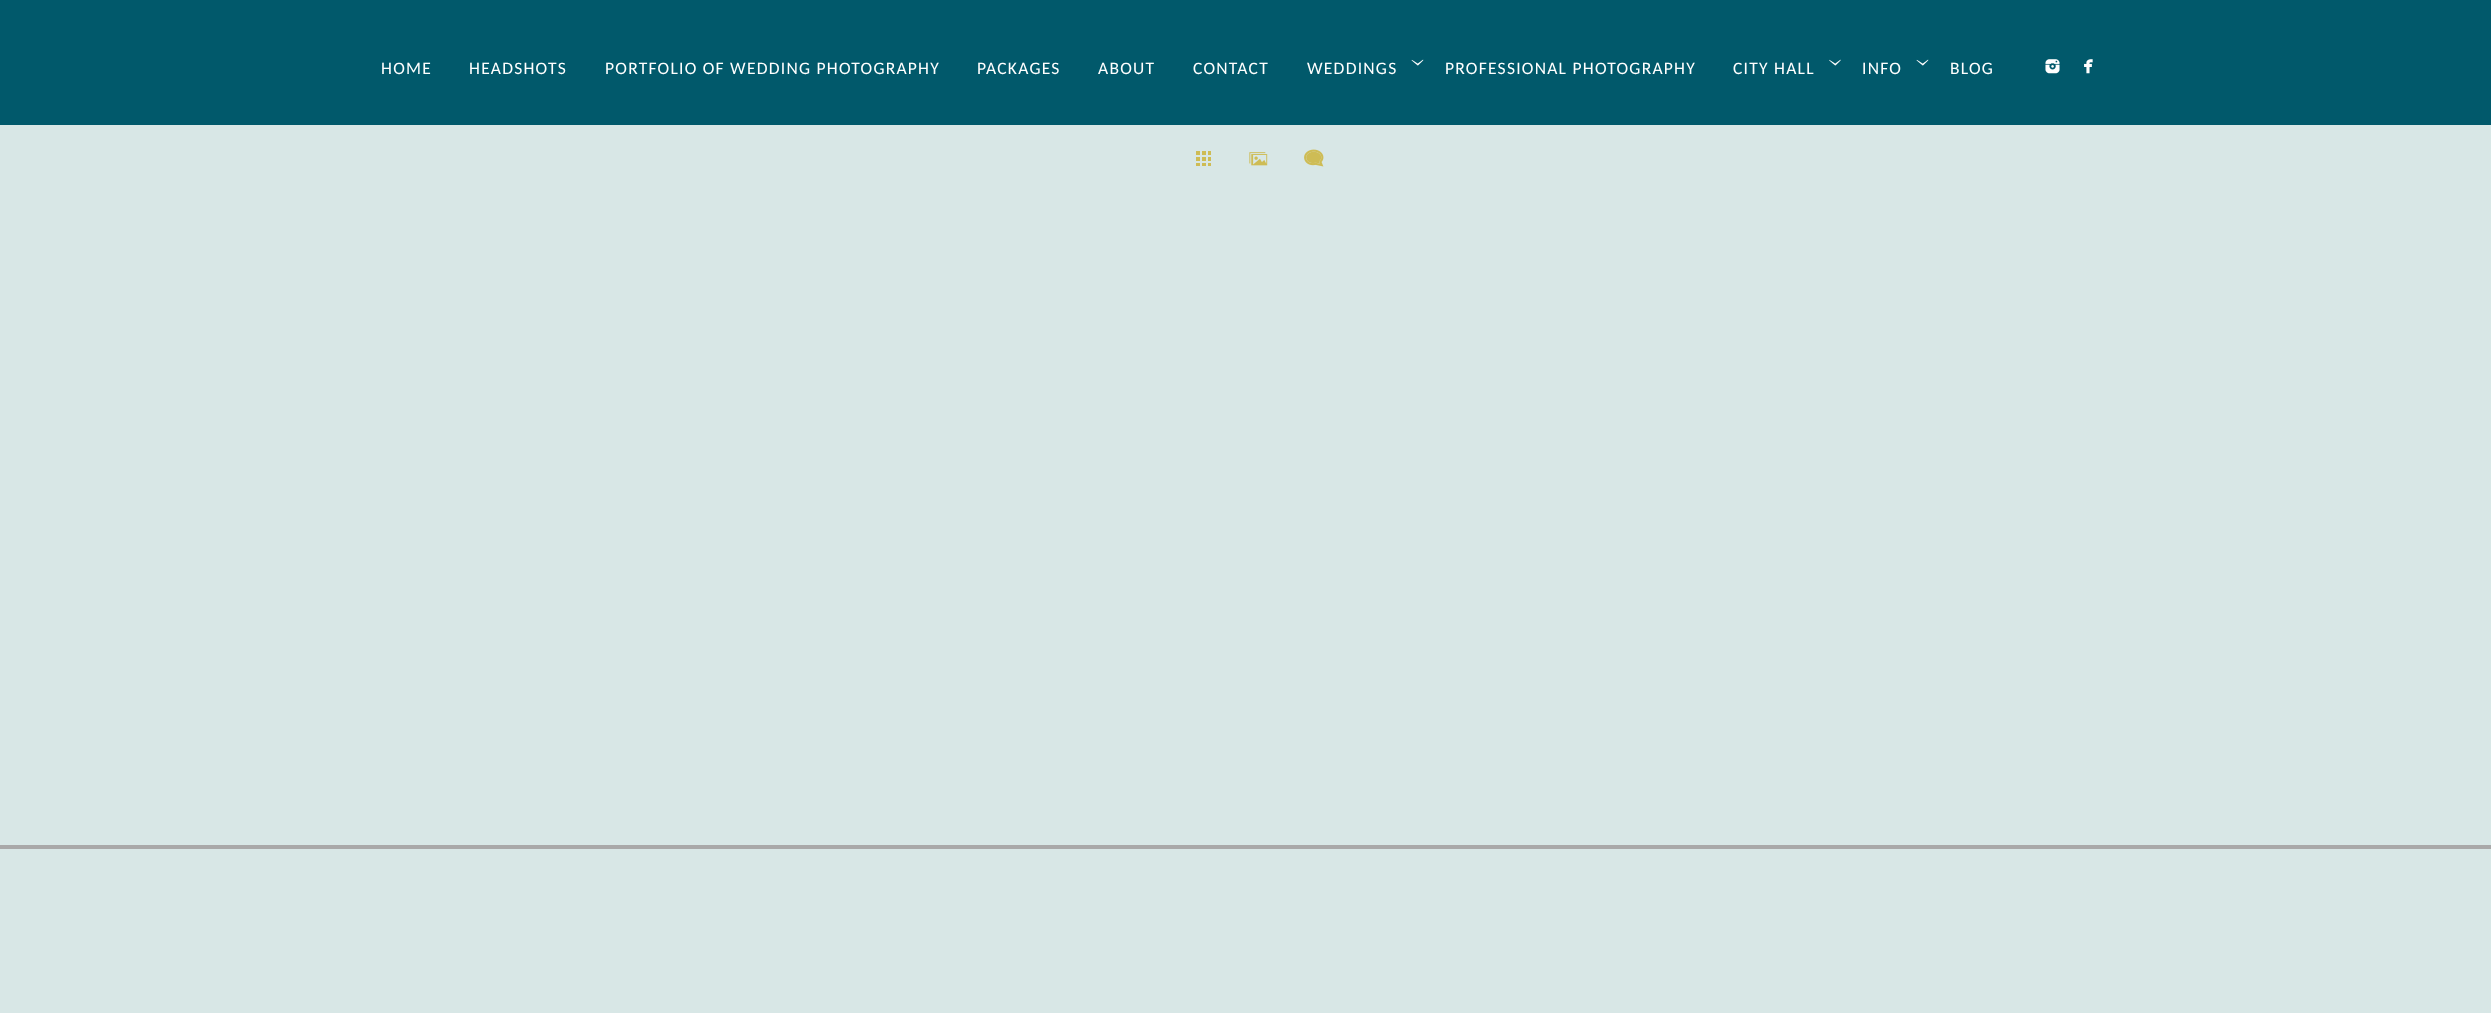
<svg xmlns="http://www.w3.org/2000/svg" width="2491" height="1013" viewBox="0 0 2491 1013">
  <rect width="100%" height="100%" fill="rgb(216,231,230)"/>
  <rect x="0" y="0" width="2491" height="125" fill="rgb(1,89,107)"/>
  <g font-family="Carlito" font-size="17.5" letter-spacing="1.25" fill="rgb(255,255,255)">
    <text x="381" y="74">HOME</text>
    <text x="469" y="74">HEADSHOTS</text>
    <text x="605" y="74">PORTFOLIO OF WEDDING PHOTOGRAPHY</text>
    <text x="977" y="74">PACKAGES</text>
    <text x="1098" y="74">ABOUT</text>
    <text x="1193" y="74">CONTACT</text>
    <text x="1307" y="74">WEDDINGS</text>
  </g>
  <image x="1411" y="59" width="13" height="7" href="pic1.png"/>
  <g font-family="Carlito" font-size="17.5" letter-spacing="1.25" fill="rgb(255,255,255)">
    <text x="1445" y="74">PROFESSIONAL PHOTOGRAPHY</text>
    <text x="1733" y="74">CITY HALL</text>
  </g>
  <image x="1829" y="59" width="12" height="7" href="pic2.png"/>
  <text x="1862" y="74" font-family="Carlito" font-size="17.5" letter-spacing="1.25" fill="rgb(255,255,255)">INFO</text>
  <image x="1916" y="59" width="13" height="7" href="pic1.png"/>
  <text x="1950" y="74" font-family="Carlito" font-size="17.5" letter-spacing="1.25" fill="rgb(255,255,255)">BLOG</text>
  <image x="2045" y="59" width="15" height="15" href="pic3.png"/>
  <image x="2084" y="59" width="9" height="15" href="pic4.png"/>
  <image x="1196" y="151" width="15" height="15" href="pic5.png"/>
  <image x="1249" y="152" width="19" height="14" href="pic6.png"/>
  <image x="1304" y="149" width="20" height="18" href="pic7.png"/>
  <rect x="0" y="845" width="2491" height="4" fill="rgb(169,169,169)"/>
</svg>
